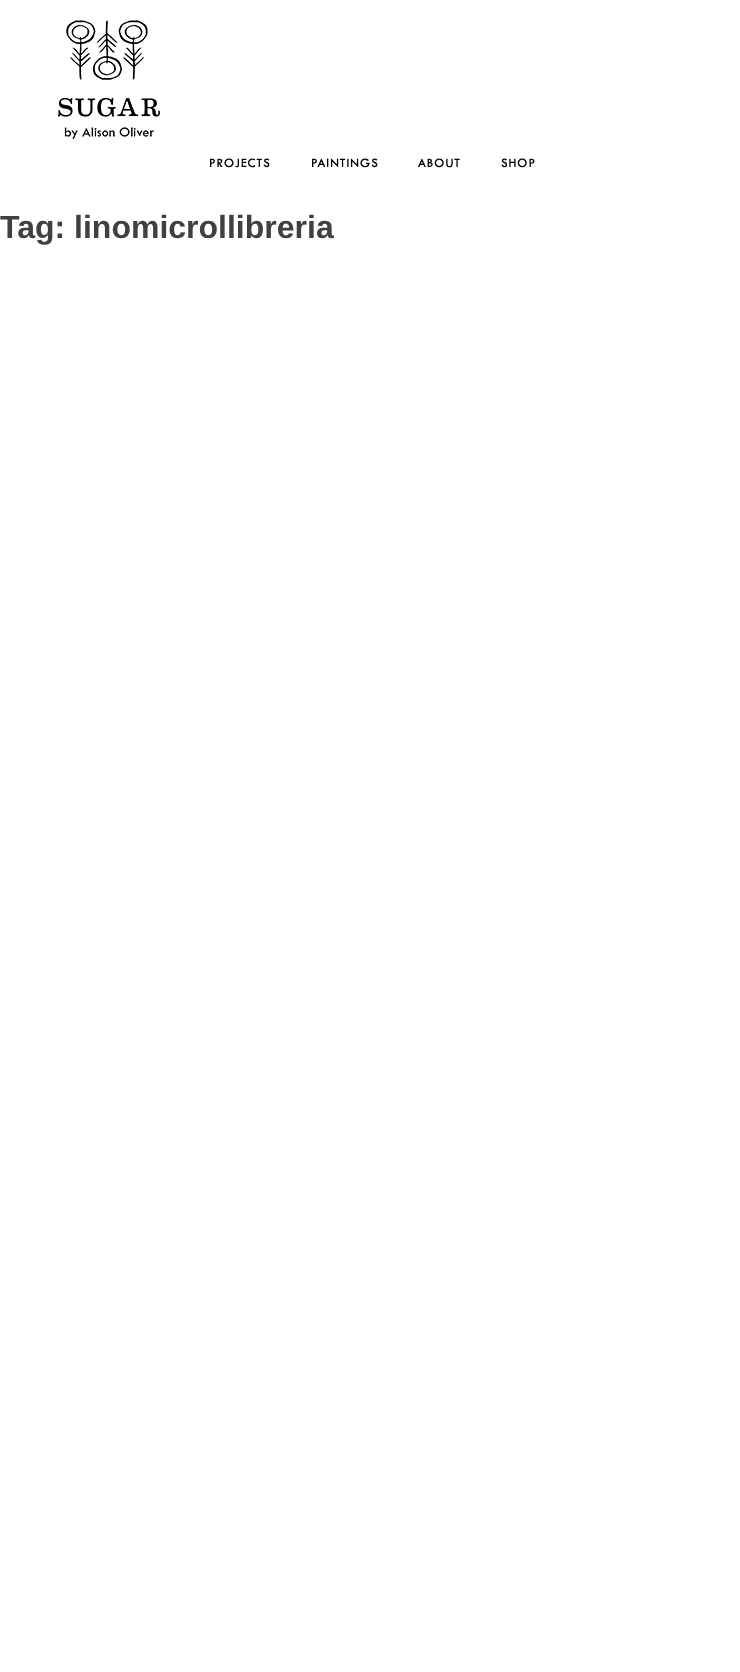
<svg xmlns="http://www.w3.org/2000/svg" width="740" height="1672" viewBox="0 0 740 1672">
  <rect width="100%" height="100%" fill="rgb(255,255,255)"/>
  <image x="58" y="20" width="102" height="119" href="pic1.png"/>
  <g font-family="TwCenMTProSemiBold" font-size="13" letter-spacing="1" fill="rgb(0,0,0)">
    <text x="209" y="167">PROJECTS</text>
    <text x="311" y="167">PAINTINGS</text>
    <text x="418" y="167">ABOUT</text>
    <text x="501" y="167">SHOP</text>
  </g>
  <text x="0" y="238" font-family="Liberation Sans" font-size="32" font-weight="bold" fill="rgb(64,64,64)">Tag: linomicrollibreria</text>
</svg>
